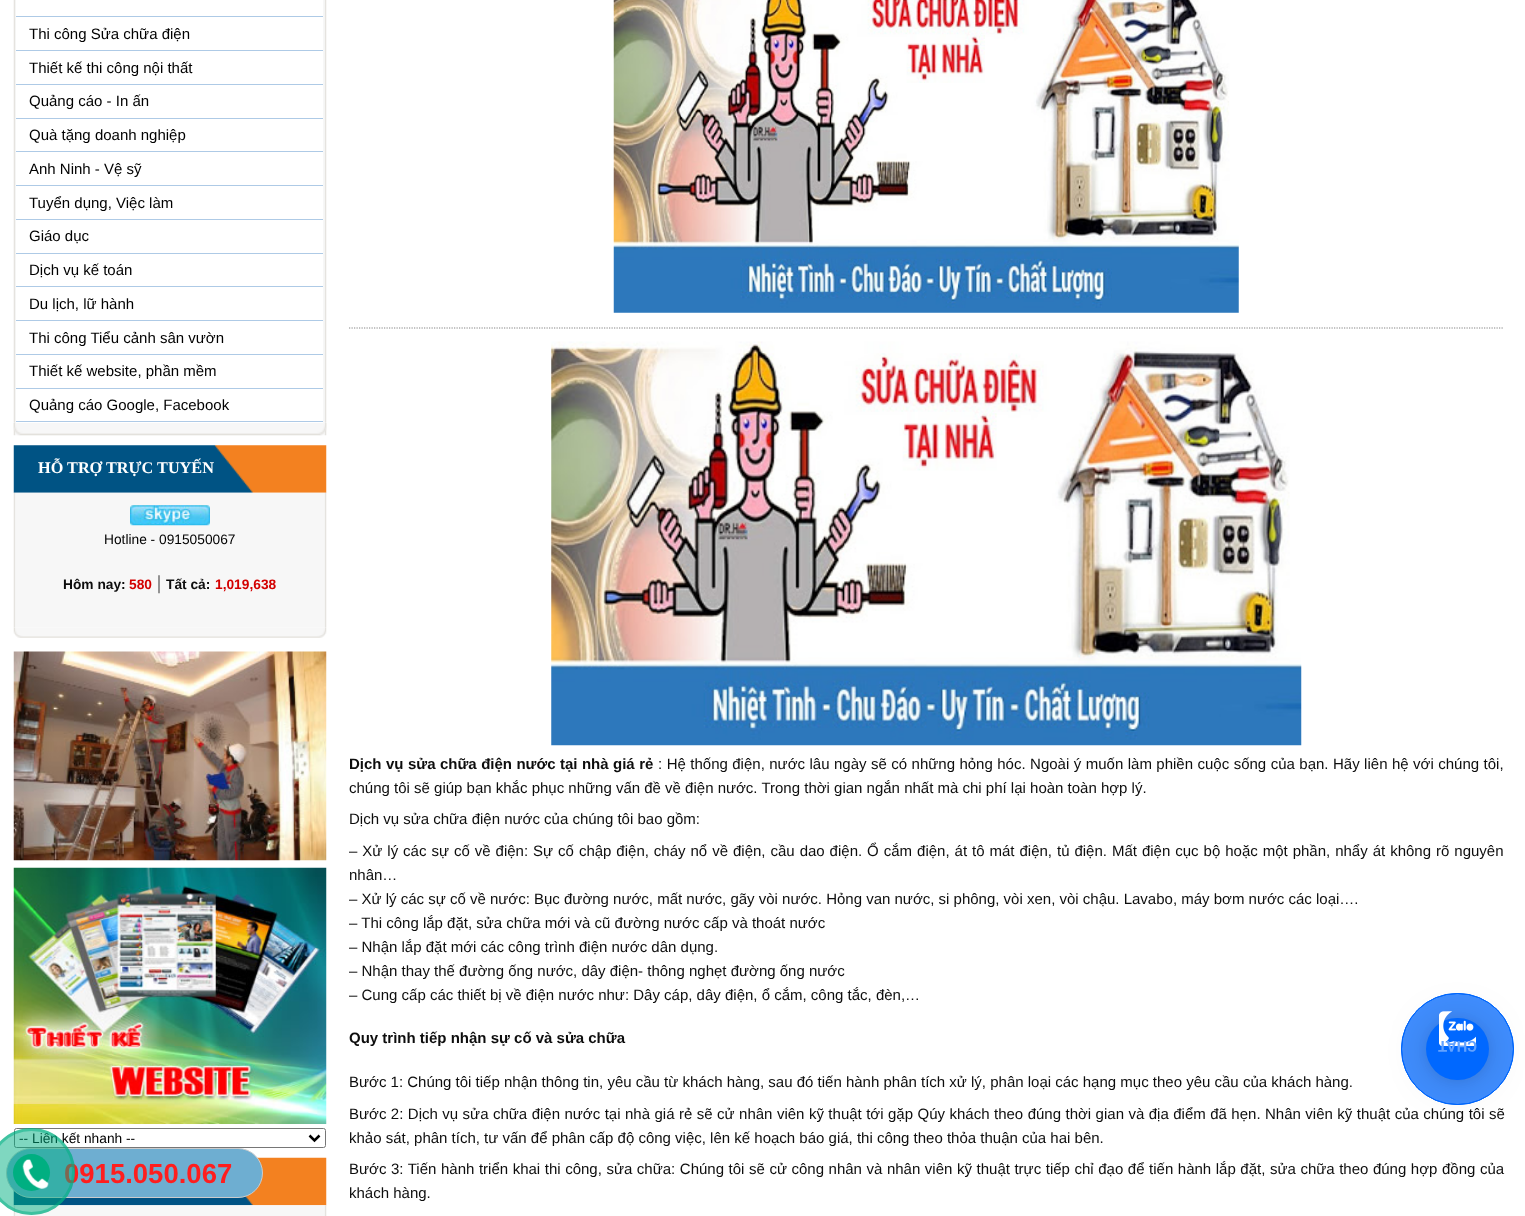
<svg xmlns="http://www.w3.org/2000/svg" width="1525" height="1216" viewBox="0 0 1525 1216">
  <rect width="100%" height="100%" fill="rgb(255,255,255)"/>
  <image x="13" y="0" width="314" height="423" href="pic1.png"/>
  <rect x="16" y="0" width="307" height="423" fill="rgb(255,255,255)"/>
  <rect x="16" y="16" width="307" height="1" fill="rgb(174,202,230)"/>
  <rect x="16" y="50" width="307" height="1" fill="rgb(174,202,230)"/>
  <text x="29" y="39" font-family="Liberation Sans" font-size="15" fill="rgb(0,0,0)">Thi công Sửa chữa điện</text>
  <rect x="16" y="84" width="307" height="1" fill="rgb(174,202,230)"/>
  <text x="29" y="73" font-family="Liberation Sans" font-size="15" fill="rgb(0,0,0)">Thiết kế thi công nội thất</text>
  <rect x="16" y="118" width="307" height="1" fill="rgb(174,202,230)"/>
  <text x="29" y="106" font-family="Liberation Sans" font-size="15" fill="rgb(0,0,0)">Quảng cáo - In ấn</text>
  <rect x="16" y="151" width="307" height="1" fill="rgb(174,202,230)"/>
  <text x="29" y="140" font-family="Liberation Sans" font-size="15" fill="rgb(0,0,0)">Quà tặng doanh nghiệp</text>
  <rect x="16" y="185" width="307" height="1" fill="rgb(174,202,230)"/>
  <text x="29" y="174" font-family="Liberation Sans" font-size="15" fill="rgb(0,0,0)">Anh Ninh - Vệ sỹ</text>
  <rect x="16" y="219" width="307" height="1" fill="rgb(174,202,230)"/>
  <text x="29" y="208" font-family="Liberation Sans" font-size="15" fill="rgb(0,0,0)">Tuyển dụng, Việc làm</text>
  <rect x="16" y="253" width="307" height="1" fill="rgb(174,202,230)"/>
  <text x="29" y="241" font-family="Liberation Sans" font-size="15" fill="rgb(0,0,0)">Giáo dục</text>
  <rect x="16" y="286" width="307" height="1" fill="rgb(174,202,230)"/>
  <text x="29" y="275" font-family="Liberation Sans" font-size="15" fill="rgb(0,0,0)">Dịch vụ kế toán</text>
  <rect x="16" y="320" width="307" height="1" fill="rgb(174,202,230)"/>
  <text x="29" y="309" font-family="Liberation Sans" font-size="15" fill="rgb(0,0,0)">Du lịch, lữ hành</text>
  <rect x="16" y="354" width="307" height="1" fill="rgb(174,202,230)"/>
  <text x="29" y="343" font-family="Liberation Sans" font-size="15" fill="rgb(0,0,0)">Thi công Tiểu cảnh sân vườn</text>
  <rect x="16" y="388" width="307" height="1" fill="rgb(174,202,230)"/>
  <text x="29" y="376" font-family="Liberation Sans" font-size="15" fill="rgb(0,0,0)">Thiết kế website, phần mềm</text>
  <rect x="16" y="421" width="307" height="1" fill="rgb(174,202,230)"/>
  <text x="29" y="410" font-family="Liberation Sans" font-size="15" fill="rgb(0,0,0)">Quảng cáo Google, Facebook</text>
  <image x="13" y="423" width="314" height="13" href="pic2.png"/>
  <image x="13" y="423" width="314" height="13" href="pic3.png"/>
  <image x="13" y="445" width="314" height="48" href="pic4.png"/>
  <text x="38" y="473" font-family="Liberation Serif" font-size="16.25" font-weight="bold" fill="rgb(255,255,255)">HỖ TRỢ TRỰC TUYẾN</text>
  <image x="13" y="492" width="314" height="136" href="pic5.png"/>
  <image x="130" y="505" width="80" height="21" href="pic6.png"/>
  <text x="104" y="544" font-family="Liberation Sans" font-size="13.75" fill="rgb(0,0,0)">Hotline - 0915050067</text>
  <text x="63" y="589" font-family="Liberation Sans" font-size="13.75" font-weight="bold" fill="rgb(13,13,13)">Hôm nay:</text>
  <text x="129" y="589" font-family="Liberation Sans" font-size="13.75" font-weight="bold" fill="rgb(211,0,0)">580</text>
  <text x="157" y="589" font-family="Liberation Serif" font-size="20" fill="rgb(51,51,51)">|</text>
  <text x="166" y="589" font-family="Liberation Sans" font-size="13.75" font-weight="bold" fill="rgb(13,13,13)">Tất cả:</text>
  <text x="215" y="589" font-family="Liberation Sans" font-size="13.75" font-weight="bold" fill="rgb(211,0,0)">1,019,638</text>
  <image x="13" y="628" width="314" height="10" href="pic7.png"/>
  <image x="13" y="651" width="314" height="210" href="pic8.png"/>
  <image x="13" y="867" width="314" height="257" href="pic9.png"/>
  <rect x="14.5" y="1128.5" width="311" height="19" rx="2" fill="none" stroke="rgb(118,118,118)"/>
  <path d="M309.5 1135.5L314.5 1140.5L319.5 1135.5" fill="none" stroke="rgb(0,0,0)" stroke-width="2.5"/>
  <text x="19" y="1143" font-family="Liberation Sans" font-size="13.75" fill="rgb(0,0,0)">-- Liên kết nhanh --</text>
  <image x="13" y="1157" width="314" height="49" href="pic10.png"/>
  <image x="13" y="1205" width="314" height="11" href="pic11.png"/>
  <image x="613" y="0" width="626" height="313" href="pic12.png"/>
  <path d="M349 328H1504" fill="none" stroke="rgb(133,133,133)" stroke-width="1.2" stroke-dasharray="1.25 1.25"/>
  <image x="551" y="341" width="751" height="405" href="pic13.png"/>
  <text x="349" y="769" word-spacing="0.3" font-family="Liberation Sans" font-size="15" font-weight="bold" fill="rgb(13,13,13)">Dịch vụ sửa chữa điện nước tại nhà giá rẻ</text>
  <g font-family="Liberation Sans" font-size="15" fill="rgb(13,13,13)">
    <text x="658" y="769" word-spacing="0.3">: Hệ thống điện, nước lâu ngày sẽ có những hỏng hóc. Ngoài ý muốn làm phiền cuộc sống của bạn. Hãy liên hệ với chúng tôi,</text>
    <text x="349" y="793">chúng tôi sẽ giúp bạn khắc phục những vấn đề về điện nước. Trong thời gian ngắn nhất mà chi phí lại hoàn toàn hợp lý.</text>
    <text x="349" y="824">Dịch vụ sửa chữa điện nước của chúng tôi bao gồm:</text>
    <text>
      <tspan x="349" y="856" word-spacing="0.8">– Xử lý các sự cố về điện: Sự cố chập điện, cháy nổ về điện, cầu dao điện. Ổ cắm điện, át tô mát điện, tủ điện. Mất điện cục bộ hoặc một phần, nhẩy át không rõ nguyên</tspan>
      <tspan x="349" y="880">nhân…</tspan>
      <tspan x="349" y="904">– Xử lý các sự cố về nước: Bục đường nước, mất nước, gãy vòi nước. Hỏng van nước, si phông, vòi xen, vòi chậu. Lavabo, máy bơm nước các loại….</tspan>
      <tspan x="349" y="928">– Thi công lắp đặt, sửa chữa mới và cũ đường nước cấp và thoát nước</tspan>
      <tspan x="349" y="952">– Nhận lắp đặt mới các công trình điện nước dân dụng.</tspan>
      <tspan x="349" y="976">– Nhận thay thế đường ống nước, dây điện- thông nghẹt đường ống nước</tspan>
      <tspan x="349" y="1000">– Cung cấp các thiết bị về điện nước như: Dây cáp, dây điện, ổ cắm, công tắc, đèn,…</tspan>
    </text>
  </g>
  <text x="349" y="1043" font-family="Liberation Sans" font-size="15" font-weight="bold" fill="rgb(13,13,13)">Quy trình tiếp nhận sự cố và sửa chữa</text>
  <g font-family="Liberation Sans" font-size="15" fill="rgb(13,13,13)">
    <text x="349" y="1087">Bước 1: Chúng tôi tiếp nhận thông tin, yêu cầu từ khách hàng, sau đó tiến hành phân tích xử lý, phân loại các hạng mục theo yêu cầu của khách hàng.</text>
    <text>
      <tspan x="349" y="1119" word-spacing="0.3">Bước 2: Dịch vụ sửa chữa điện nước tại nhà giá rẻ sẽ cử nhân viên kỹ thuật tới gặp Qúy khách theo đúng thời gian và địa điểm đã hẹn. Nhân viên kỹ thuật của chúng tôi sẽ</tspan>
      <tspan x="349" y="1143">khảo sát, phân tích, tư vấn để phân cấp độ công việc, lên kế hoạch báo giá, thi công theo thỏa thuận của hai bên.</tspan>
    </text>
    <text>
      <tspan x="349" y="1174" word-spacing="0.4">Bước 3: Tiến hành triển khai thi công, sửa chữa: Chúng tôi sẽ cử công nhân và nhân viên kỹ thuật trực tiếp chỉ đạo để tiến hành lắp đặt, sửa chữa theo đúng hợp đồng của</tspan>
      <tspan x="349" y="1198">khách hàng.</tspan>
    </text>
  </g>
  <rect x="1401.5" y="993.5" width="112" height="111" rx="55.5" fill="rgb(128,180,255)" stroke="rgb(0,104,255)"/>
  <rect x="1401.5" y="993.5" width="112" height="111" rx="55.5" fill="rgba(0,104,255,0.5)" stroke="rgb(0,104,255)"/>
  <rect x="1426" y="1020" width="63" height="63" rx="31.5" fill="rgba(0,0,0,0.16)" filter="blur(20px)"/>
  <rect x="1426" y="1019" width="63" height="62" rx="31" fill="rgba(0,0,0,0.06)" filter="blur(4px)"/>
  <rect x="1426" y="1018" width="63" height="62" rx="31" fill="rgb(0,104,255)"/>
  <image x="1439" y="1011" width="37" height="35" href="pic14.png"/>
  <text x="1477" y="1041" transform="rotate(180 1477 1041)" font-family="Roboto" font-size="15" font-weight="bold" fill="rgb(98,162,255)">CHAT</text>
  <rect x="6.5" y="1148.5" width="256" height="49" rx="24.5" fill="rgb(110,174,209)" stroke="rgb(204,204,204)"/>
  <text x="64" y="1183" font-family="Liberation Sans" font-size="27.5" font-weight="bold" fill="rgb(255,30,30)">0915.050.067</text>
  <circle cx="31.5" cy="1171.5" r="43.5" fill="rgba(0,175,129,0.5)"/>
  <circle cx="31.5" cy="1171.5" r="42" fill="none" stroke="rgba(0,175,129,0.5)" stroke-width="3"/>
  <circle cx="31.5" cy="1172.5" r="18.5" fill="rgb(0,175,129)"/>
  <image x="22" y="1159" width="27" height="30" href="pic15.png"/>
</svg>
